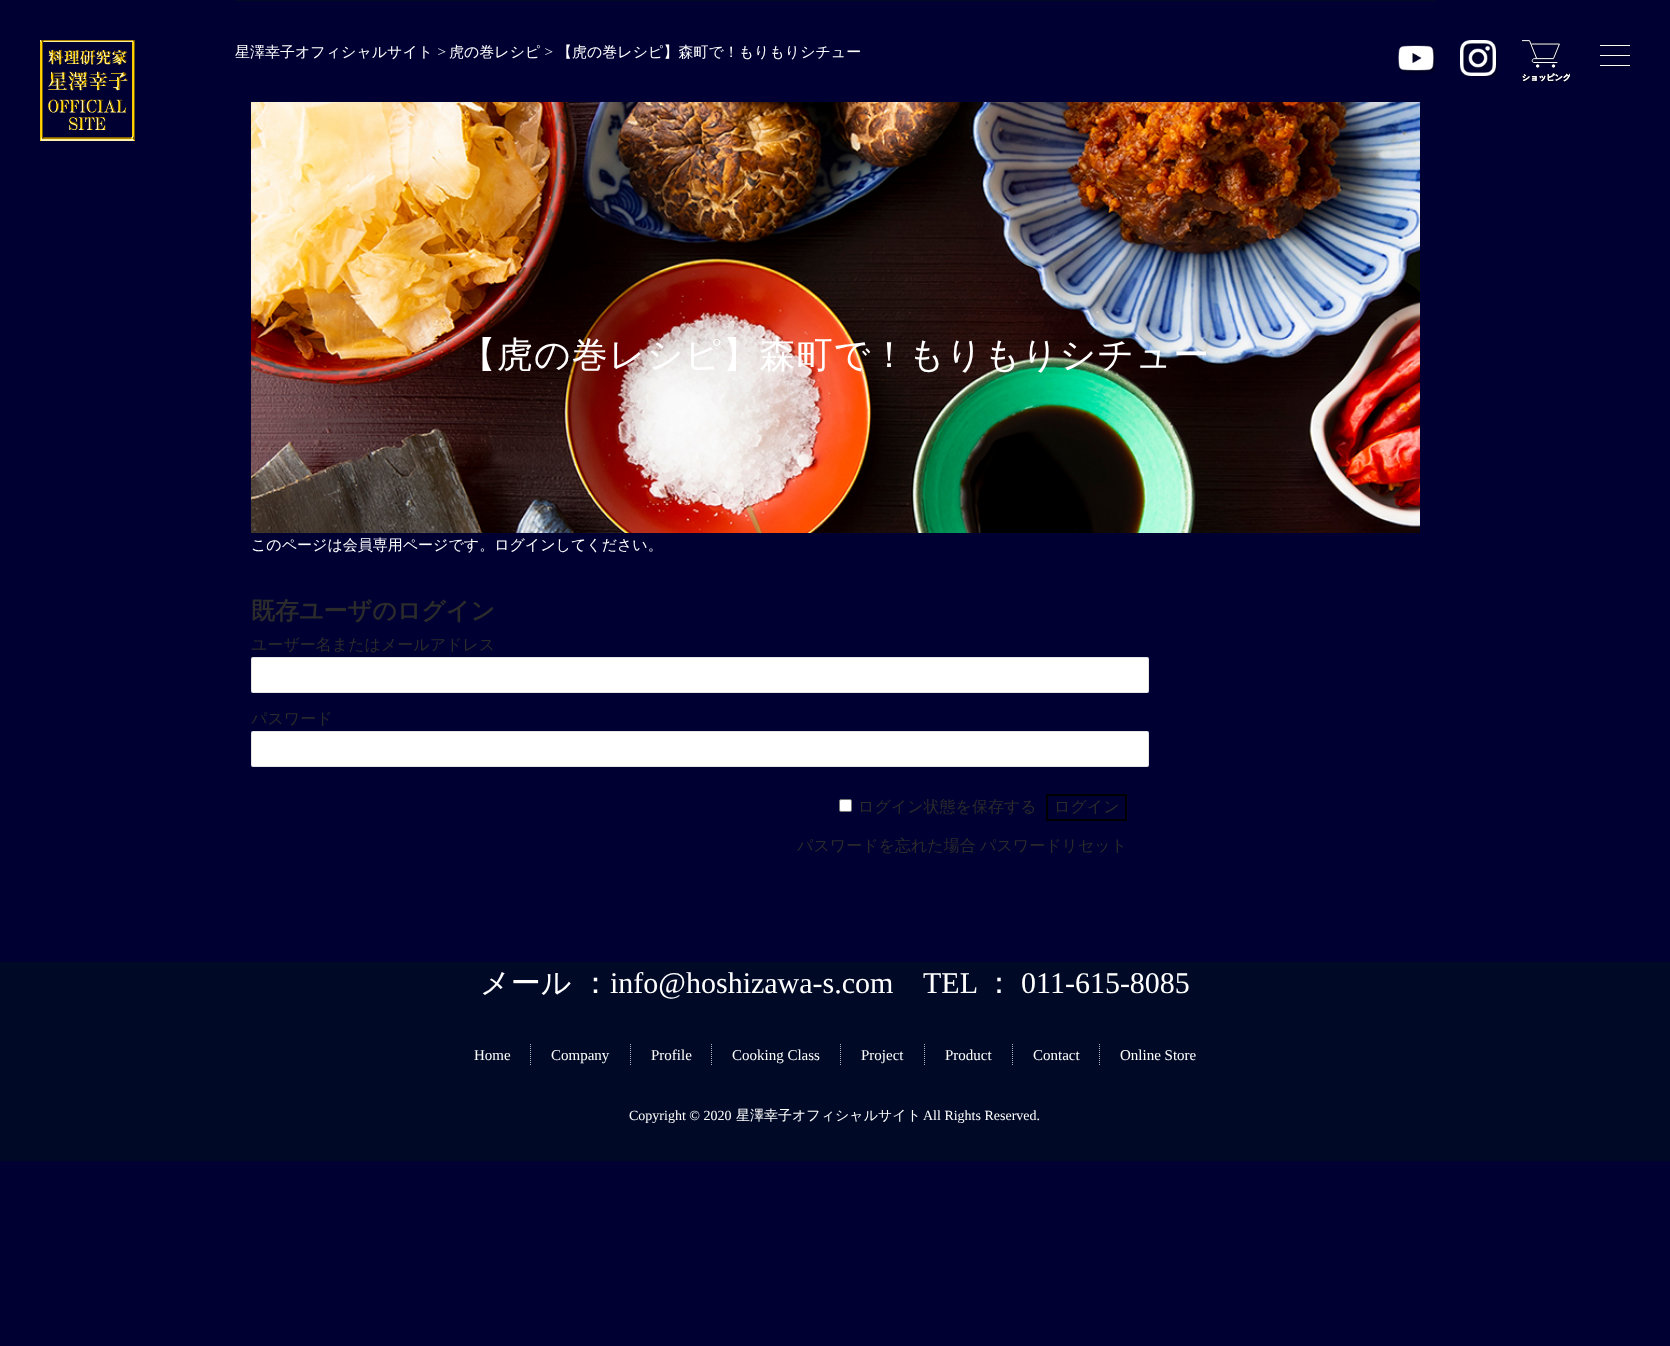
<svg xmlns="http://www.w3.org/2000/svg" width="1670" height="1346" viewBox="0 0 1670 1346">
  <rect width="100%" height="100%" fill="rgb(0,0,51)"/>
  <image x="40" y="40" width="95" height="101" href="pic1.png"/>
  <image x="1398" y="45" width="37" height="29" href="pic2.png"/>
  <image x="1460" y="40" width="37" height="37" href="pic3.png"/>
  <image x="1522" y="40" width="48" height="43" href="pic4.png"/>
  <rect x="1600" y="55" width="30" height="1" fill="rgba(0,0,0,0.9)" filter="blur(1px)"/>
  <rect x="1600" y="55" width="30" height="1" fill="rgb(255,255,255)"/>
  <rect x="1600" y="45" width="30" height="1" fill="rgba(0,0,0,0.9)" filter="blur(1px)"/>
  <rect x="1600" y="45" width="30" height="1" fill="rgb(255,255,255)"/>
  <rect x="1600" y="65" width="30" height="1" fill="rgba(0,0,0,0.9)" filter="blur(1px)"/>
  <rect x="1600" y="65" width="30" height="1" fill="rgb(255,255,255)"/>
  <rect x="235" y="0" width="1200" height="1" fill="rgb(0,10,38)"/>
  <text x="235" y="57" font-family="WenQuanYi Zen Hei" font-size="15" font-weight="500" fill="rgb(255,255,255)">星澤幸子オフィシャルサイト</text>
  <text x="437" y="57" font-family="Playfair Display" font-size="15" font-weight="bold" fill="rgb(255,255,255)">&gt;</text>
  <text x="449" y="57" font-family="WenQuanYi Zen Hei" font-size="15" font-weight="500" fill="rgb(255,255,255)">虎の巻レシピ</text>
  <text x="544" y="57" font-family="Playfair Display" font-size="15" font-weight="bold" fill="rgb(255,255,255)">&gt;</text>
  <text x="557" y="57" font-family="WenQuanYi Zen Hei" font-size="15" font-weight="500" fill="rgb(255,255,255)">【虎の巻レシピ】森町で！もりもりシチュー</text>
  <image x="251" y="102" width="1169" height="431" href="pic5.png"/>
  <text x="460" y="367" font-family="WenQuanYi Zen Hei" font-size="36" font-weight="500" letter-spacing="1" fill="rgb(255,255,255)">【虎の巻レシピ】森町で！もりもりシチュー</text>
  <text x="251" y="550" font-family="WenQuanYi Zen Hei" font-size="15" font-weight="500" fill="rgb(255,255,255)">このページは会員専用ページです。ログインしてください。</text>
  <text x="251" y="619" font-family="WenQuanYi Zen Hei" font-size="24" font-weight="bold" fill="rgb(43,43,43)">既存ユーザのログイン</text>
  <text x="251" y="650" font-family="WenQuanYi Zen Hei" font-size="16" font-weight="500" fill="rgb(43,43,43)">ユーザー名またはメールアドレス</text>
  <rect x="251" y="657" width="898" height="36" rx="2" fill="rgb(255,255,255)"/>
  <rect x="251.5" y="657.5" width="897" height="35" rx="1.5" fill="none" stroke="rgba(0,0,0,0.1)"/>
  <text x="251" y="724" font-family="WenQuanYi Zen Hei" font-size="16" font-weight="500" fill="rgb(43,43,43)">パスワード</text>
  <rect x="251" y="731" width="898" height="36" rx="2" fill="rgb(255,255,255)"/>
  <rect x="251.5" y="731.5" width="897" height="35" rx="1.5" fill="none" stroke="rgba(0,0,0,0.1)"/>
  <rect x="839.5" y="799.5" width="12" height="12" rx="1.5" fill="rgb(255,255,255)" stroke="rgb(118,118,118)"/>
  <text x="858" y="812" font-family="WenQuanYi Zen Hei" font-size="16" font-weight="500" fill="rgb(43,43,43)">ログイン状態を保存する</text>
  <rect x="1047" y="795" width="79" height="25" fill="none" stroke="rgb(0,0,0)" stroke-width="2"/>
  <g font-family="WenQuanYi Zen Hei" font-size="16" font-weight="500" fill="rgb(43,43,43)">
    <text x="1054" y="812">ログイン</text>
    <text x="797" y="851">パスワードを忘れた場合</text>
    <text x="980" y="851">パスワードリセット</text>
  </g>
  <rect x="0" y="962" width="1670" height="199" fill="rgb(0,10,38)"/>
  <text x="480" y="993" font-family="WenQuanYi Zen Hei" font-size="30" font-weight="500" fill="rgb(255,255,255)">メール ：</text>
  <g font-family="Liberation Serif" font-size="30" fill="rgb(255,255,255)">
    <text x="610" y="993">info@hoshizawa-s.com</text>
    <text x="923" y="993">TEL</text>
  </g>
  <text x="984" y="993" font-family="WenQuanYi Zen Hei" font-size="30" font-weight="500" fill="rgb(255,255,255)">：</text>
  <text x="1021" y="993" font-family="Liberation Serif" font-size="30" fill="rgb(255,255,255)">011-615-8085</text>
  <path d="M530.5 1044V1066" fill="none" stroke="rgb(179,182,190)" stroke-dasharray="1 1"/>
  <text x="474" y="1060" font-family="Liberation Serif" font-size="15" fill="rgb(255,255,255)">Home</text>
  <path d="M630.5 1044V1066" fill="none" stroke="rgb(179,182,190)" stroke-dasharray="1 1"/>
  <text x="551" y="1060" font-family="Liberation Serif" font-size="15" fill="rgb(255,255,255)">Company</text>
  <path d="M711.5 1044V1066" fill="none" stroke="rgb(179,182,190)" stroke-dasharray="1 1"/>
  <text x="651" y="1060" font-family="Liberation Serif" font-size="15" fill="rgb(255,255,255)">Profile</text>
  <path d="M840.5 1044V1066" fill="none" stroke="rgb(179,182,190)" stroke-dasharray="1 1"/>
  <text x="732" y="1060" font-family="Liberation Serif" font-size="15" fill="rgb(255,255,255)">Cooking Class</text>
  <path d="M924.5 1044V1066" fill="none" stroke="rgb(179,182,190)" stroke-dasharray="1 1"/>
  <text x="861" y="1060" font-family="Liberation Serif" font-size="15" fill="rgb(255,255,255)">Project</text>
  <path d="M1012.5 1044V1066" fill="none" stroke="rgb(179,182,190)" stroke-dasharray="1 1"/>
  <text x="945" y="1060" font-family="Liberation Serif" font-size="15" fill="rgb(255,255,255)">Product</text>
  <path d="M1099.5 1044V1066" fill="none" stroke="rgb(179,182,190)" stroke-dasharray="1 1"/>
  <g font-family="Liberation Serif" font-size="15" fill="rgb(255,255,255)">
    <text x="1033" y="1060">Contact</text>
    <text x="1120" y="1060">Online Store</text>
  </g>
  <text x="629" y="1120" font-family="Liberation Serif" font-size="14" fill="rgb(255,255,255)">Copyright © 2020</text>
  <text x="736" y="1120" font-family="WenQuanYi Zen Hei" font-size="14" font-weight="500" fill="rgb(255,255,255)">星澤幸子オフィシャルサイト</text>
  <text x="923" y="1120" font-family="Liberation Serif" font-size="14" fill="rgb(255,255,255)">All Rights Reserved.</text>
</svg>
